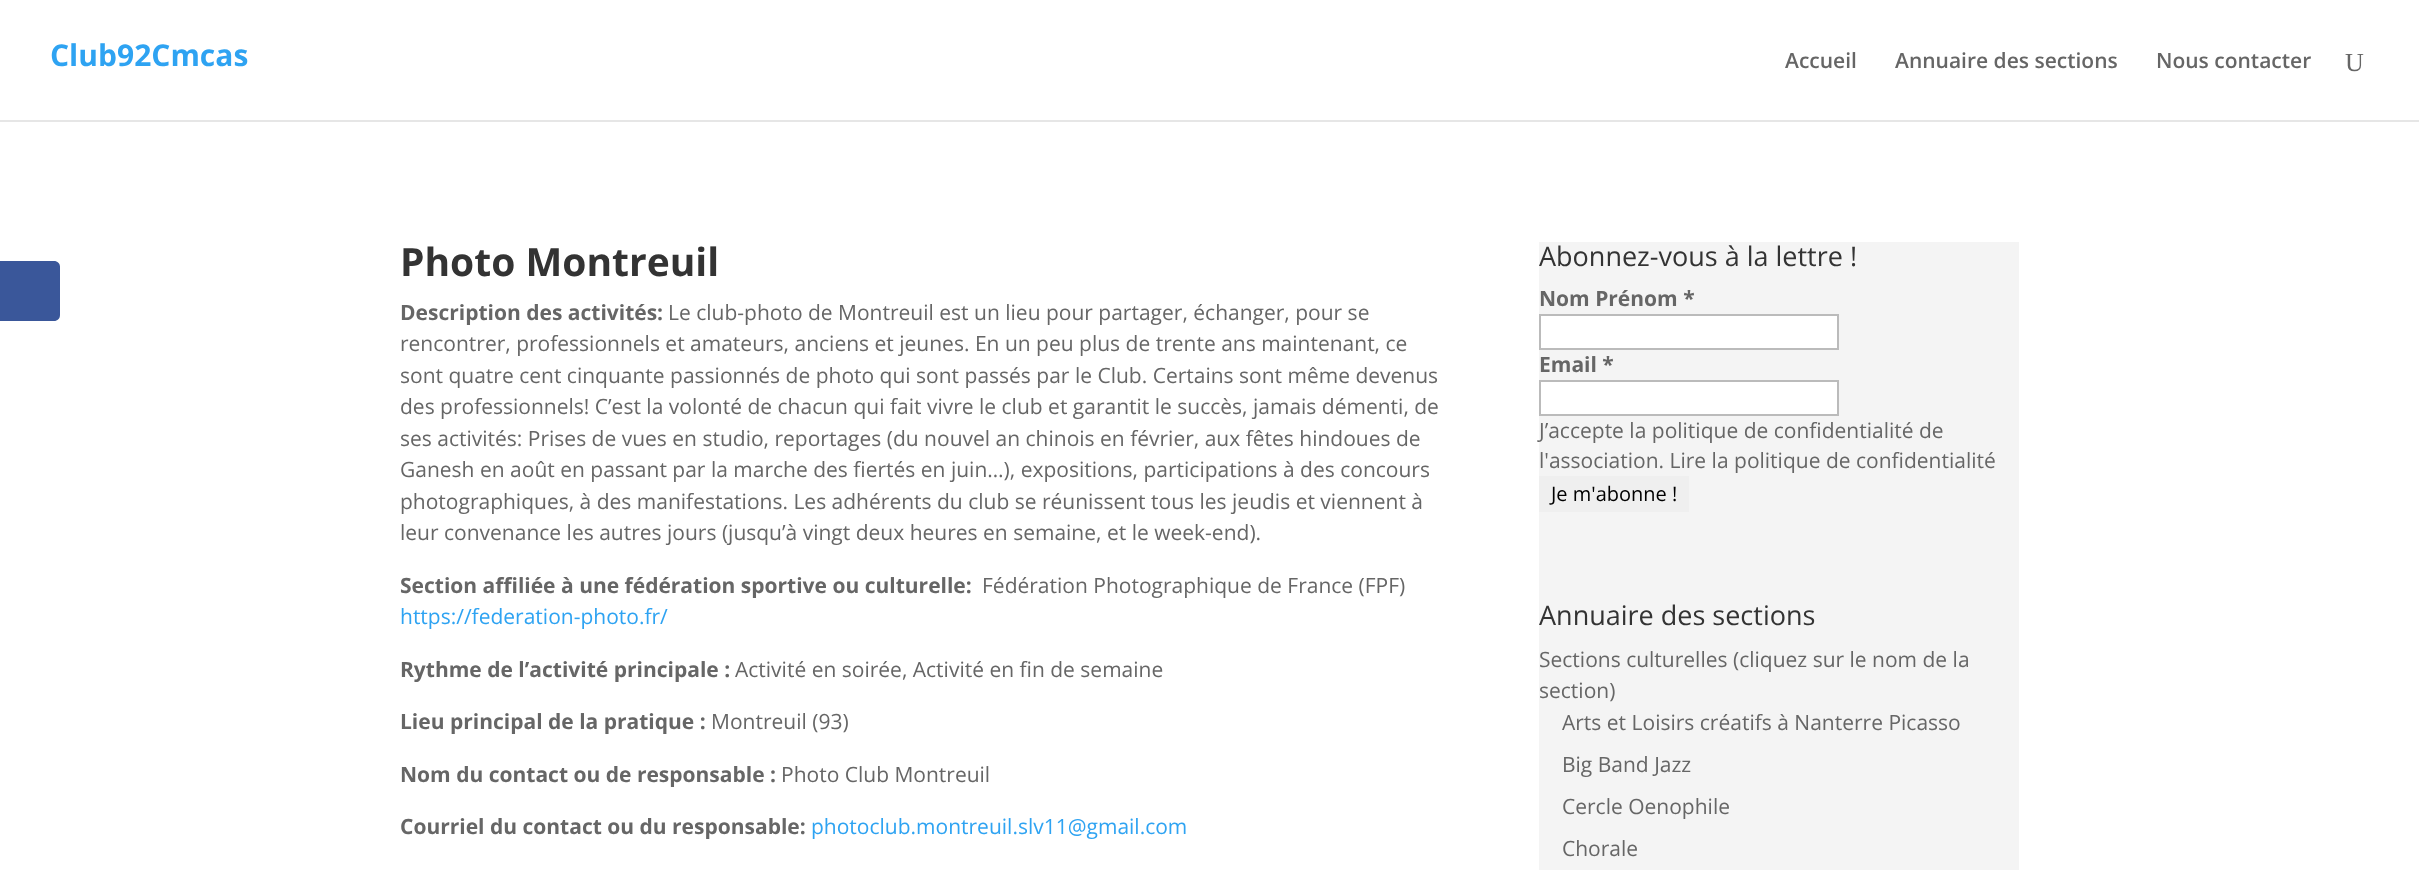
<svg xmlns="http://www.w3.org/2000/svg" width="2419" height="870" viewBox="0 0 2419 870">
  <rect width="100%" height="100%" fill="rgb(255,255,255)"/>
  <path d="M0 261H54C57.5 261 60 263.5 60 267V315C60 318.5 57.5 321 54 321H0Z" fill="rgb(58,87,154)"/>
  <path d="M0 120V122H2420V2V120Z" fill="rgb(230,230,230)"/>
  <text x="50" y="66" font-family="Open Sans" font-size="30" font-weight="bold" fill="rgb(46,163,242)">Club92Cmcas</text>
  <g font-family="Open Sans" font-size="21" font-weight="600" fill="rgb(102,102,102)">
    <text x="1785" y="68">Accueil</text>
    <text x="1895" y="68">Annuaire des sections</text>
    <text x="2156" y="68">Nous contacter</text>
  </g>
  <text x="2345" y="71" font-family="Liberation Serif" font-size="26" fill="rgb(102,102,102)">U</text>
  <text x="400" y="276" font-family="Open Sans" font-size="39" font-weight="bold" fill="rgb(51,51,51)">Photo Montreuil</text>
  <text x="400" y="320" font-family="Open Sans" font-size="21" font-weight="bold" fill="rgb(102,102,102)">Description des activités:</text>
  <g font-family="Open Sans" font-size="21" fill="rgb(102,102,102)">
    <text x="668" y="320">Le club-photo de Montreuil est un lieu pour partager, échanger, pour se</text>
    <text>
      <tspan x="400" y="351">rencontrer, professionnels et amateurs, anciens et jeunes. En un peu plus de trente ans maintenant, ce</tspan>
      <tspan x="400" y="383">sont quatre cent cinquante passionnés de photo qui sont passés par le Club. Certains sont même devenus</tspan>
      <tspan x="400" y="414">des professionnels! C’est la volonté de chacun qui fait vivre le club et garantit le succès, jamais démenti, de</tspan>
      <tspan x="400" y="446">ses activités: Prises de vues en studio, reportages (du nouvel an chinois en février, aux fêtes hindoues de</tspan>
      <tspan x="400" y="477">Ganesh en août en passant par la marche des fiertés en juin…), expositions, participations à des concours</tspan>
      <tspan x="400" y="509">photographiques, à des manifestations. Les adhérents du club se réunissent tous les jeudis et viennent à</tspan>
      <tspan x="400" y="540">leur convenance les autres jours (jusqu’à vingt deux heures en semaine, et le week-end).</tspan>
    </text>
  </g>
  <text x="400" y="593" font-family="Open Sans" font-size="21" font-weight="bold" fill="rgb(102,102,102)">Section affiliée à une fédération sportive ou culturelle:</text>
  <text x="982" y="593" font-family="Open Sans" font-size="21" fill="rgb(102,102,102)">Fédération Photographique de France (FPF)</text>
  <text x="400" y="624" font-family="Open Sans" font-size="21" fill="rgb(46,163,242)">https://federation-photo.fr/</text>
  <text x="400" y="677" font-family="Open Sans" font-size="21" font-weight="bold" fill="rgb(102,102,102)">Rythme de l’activité principale :</text>
  <text x="735" y="677" font-family="Open Sans" font-size="21" fill="rgb(102,102,102)">Activité en soirée, Activité en fin de semaine</text>
  <text x="400" y="729" font-family="Open Sans" font-size="21" font-weight="bold" fill="rgb(102,102,102)">Lieu principal de la pratique :</text>
  <text x="711" y="729" font-family="Open Sans" font-size="21" fill="rgb(102,102,102)">Montreuil (93)</text>
  <text x="400" y="782" font-family="Open Sans" font-size="21" font-weight="bold" fill="rgb(102,102,102)">Nom du contact ou de responsable :</text>
  <text x="781" y="782" font-family="Open Sans" font-size="21" fill="rgb(102,102,102)">Photo Club Montreuil</text>
  <text x="400" y="834" font-family="Open Sans" font-size="21" font-weight="bold" fill="rgb(102,102,102)">Courriel du contact ou du responsable:</text>
  <text x="811" y="834" font-family="Open Sans" font-size="21" fill="rgb(46,163,242)">photoclub.montreuil.slv11@gmail.com</text>
  <rect x="1539" y="242" width="480" height="628" fill="rgb(244,244,244)"/>
  <text x="1539" y="266" font-family="Open Sans" font-size="27" fill="rgb(51,51,51)">Abonnez-vous à la lettre !</text>
  <text x="1539" y="306" font-family="Open Sans" font-size="21" font-weight="bold" fill="rgb(102,102,102)">Nom Prénom *</text>
  <rect x="1540" y="315" width="298" height="34" fill="rgb(255,255,255)" stroke="rgb(187,187,187)" stroke-width="2"/>
  <text x="1539" y="372" font-family="Open Sans" font-size="21" font-weight="bold" fill="rgb(102,102,102)">Email *</text>
  <rect x="1540" y="381" width="298" height="34" fill="rgb(255,255,255)" stroke="rgb(187,187,187)" stroke-width="2"/>
  <g font-family="Open Sans" font-size="21" fill="rgb(102,102,102)">
    <text>
      <tspan x="1539" y="438">J’accepte la politique de confidentialité de</tspan>
      <tspan x="1539" y="468">l'association. Lire la politique de confidentialité</tspan>
    </text>
  </g>
  <rect x="1539" y="476" width="150" height="36" fill="rgb(239,239,239)"/>
  <text x="1551" y="501" font-family="Open Sans" font-size="20" fill="rgb(0,0,0)">Je m'abonne !</text>
  <text x="1539" y="625" font-family="Open Sans" font-size="27" fill="rgb(51,51,51)">Annuaire des sections</text>
  <g font-family="Open Sans" font-size="21" fill="rgb(102,102,102)">
    <text>
      <tspan x="1539" y="667">Sections culturelles (cliquez sur le nom de la</tspan>
      <tspan x="1539" y="698">section)</tspan>
    </text>
    <text x="1562" y="730">Arts et Loisirs créatifs à Nanterre Picasso</text>
    <text x="1562" y="772">Big Band Jazz</text>
    <text x="1562" y="814">Cercle Oenophile</text>
    <text x="1562" y="856">Chorale</text>
  </g>
</svg>
